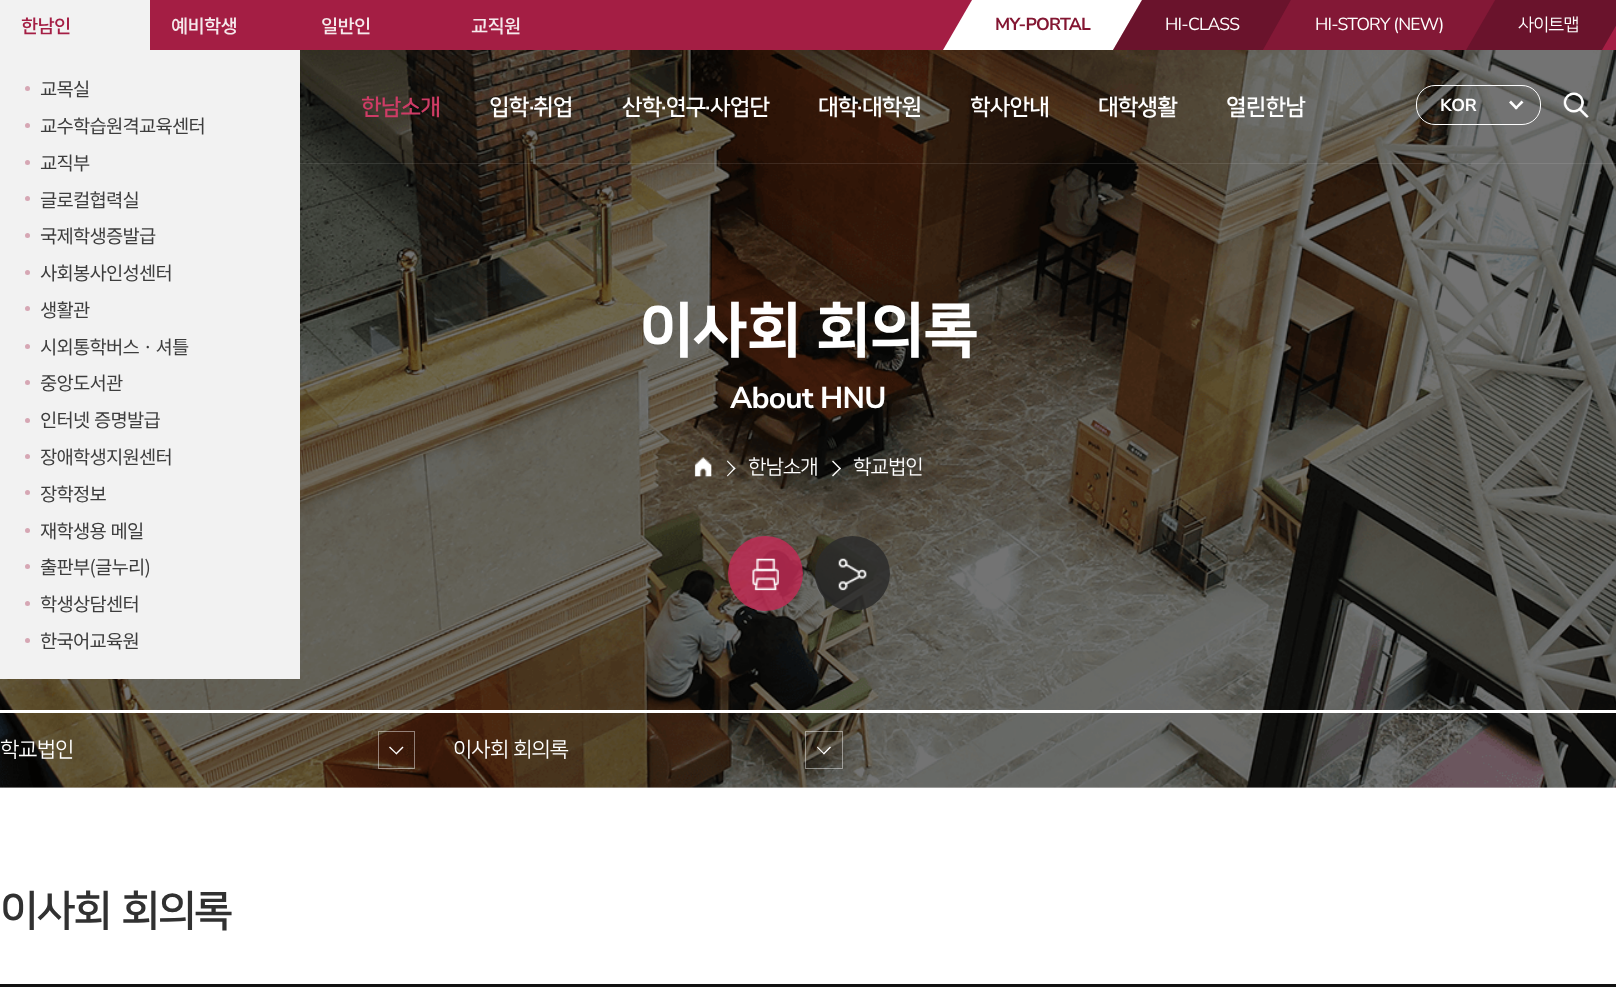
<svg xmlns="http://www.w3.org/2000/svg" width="1616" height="1006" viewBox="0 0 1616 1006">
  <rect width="100%" height="100%" fill="rgb(255,255,255)"/>
  <rect x="0" y="0" width="150" height="50" fill="rgb(242,242,242)"/>
  <text x="21" y="33" font-family="Noto Sans KR" font-size="18.75" font-weight="500" letter-spacing="-0.75" fill="rgb(164,30,68)">한남인</text>
  <rect x="0" y="787" width="1616" height="1" fill="rgb(211,208,209)"/>
  <image x="0" y="50" width="1616" height="738" href="pic2.png"/>
  <rect x="0" y="50" width="300" height="629" fill="rgb(242,242,242)"/>
  <circle cx="27.5" cy="88.5" r="2.5" fill="rgb(214,167,180)"/>
  <text x="40" y="96" font-family="Noto Sans KR" font-size="18.75" letter-spacing="-0.75" fill="rgb(61,61,61)">교목실</text>
  <circle cx="27.5" cy="125.5" r="2.5" fill="rgb(214,167,180)"/>
  <text x="40" y="133" font-family="Noto Sans KR" font-size="18.75" letter-spacing="-0.75" fill="rgb(61,61,61)">교수학습원격교육센터</text>
  <circle cx="27.5" cy="162.5" r="2.5" fill="rgb(214,167,180)"/>
  <text x="40" y="170" font-family="Noto Sans KR" font-size="18.75" letter-spacing="-0.75" fill="rgb(61,61,61)">교직부</text>
  <circle cx="27.5" cy="198.5" r="2.5" fill="rgb(214,167,180)"/>
  <text x="40" y="207" font-family="Noto Sans KR" font-size="18.75" letter-spacing="-0.75" fill="rgb(61,61,61)">글로컬협력실</text>
  <circle cx="27.5" cy="235.5" r="2.5" fill="rgb(214,167,180)"/>
  <text x="40" y="243" font-family="Noto Sans KR" font-size="18.75" letter-spacing="-0.75" fill="rgb(61,61,61)">국제학생증발급</text>
  <circle cx="27.5" cy="272.5" r="2.5" fill="rgb(214,167,180)"/>
  <text x="40" y="280" font-family="Noto Sans KR" font-size="18.75" letter-spacing="-0.75" fill="rgb(61,61,61)">사회봉사인성센터</text>
  <circle cx="27.5" cy="308.5" r="2.5" fill="rgb(214,167,180)"/>
  <text x="40" y="317" font-family="Noto Sans KR" font-size="18.75" letter-spacing="-0.75" fill="rgb(61,61,61)">생활관</text>
  <circle cx="27.5" cy="346.5" r="2.5" fill="rgb(214,167,180)"/>
  <text x="40" y="354" font-family="Noto Sans KR" font-size="18.75" letter-spacing="-0.75" fill="rgb(61,61,61)">시외통학버스ㆍ셔틀</text>
  <circle cx="27.5" cy="382.5" r="2.5" fill="rgb(214,167,180)"/>
  <text x="40" y="390" font-family="Noto Sans KR" font-size="18.75" letter-spacing="-0.75" fill="rgb(61,61,61)">중앙도서관</text>
  <circle cx="27.5" cy="420.5" r="2.5" fill="rgb(214,167,180)"/>
  <text x="40" y="427" word-spacing="1" font-family="Noto Sans KR" font-size="18.75" letter-spacing="-0.75" fill="rgb(61,61,61)">인터넷 증명발급</text>
  <circle cx="27.5" cy="456.5" r="2.5" fill="rgb(214,167,180)"/>
  <text x="40" y="464" font-family="Noto Sans KR" font-size="18.75" letter-spacing="-0.75" fill="rgb(61,61,61)">장애학생지원센터</text>
  <circle cx="27.5" cy="492.5" r="2.5" fill="rgb(214,167,180)"/>
  <text x="40" y="501" font-family="Noto Sans KR" font-size="18.75" letter-spacing="-0.75" fill="rgb(61,61,61)">장학정보</text>
  <circle cx="27.5" cy="530.5" r="2.5" fill="rgb(214,167,180)"/>
  <text x="40" y="538" word-spacing="1" font-family="Noto Sans KR" font-size="18.75" letter-spacing="-0.75" fill="rgb(61,61,61)">재학생용 메일</text>
  <circle cx="27.5" cy="566.5" r="2.5" fill="rgb(214,167,180)"/>
  <text x="40" y="574" font-family="Noto Sans KR" font-size="18.75" letter-spacing="-0.75" fill="rgb(61,61,61)">출판부(글누리)</text>
  <circle cx="27.5" cy="603.5" r="2.5" fill="rgb(214,167,180)"/>
  <text x="40" y="611" font-family="Noto Sans KR" font-size="18.75" letter-spacing="-0.75" fill="rgb(61,61,61)">학생상담센터</text>
  <circle cx="27.5" cy="640.5" r="2.5" fill="rgb(214,167,180)"/>
  <text x="40" y="648" font-family="Noto Sans KR" font-size="18.75" letter-spacing="-0.75" fill="rgb(61,61,61)">한국어교육원</text>
  <rect x="150" y="0" width="1466" height="50" fill="rgb(164,30,68)"/>
  <g font-family="Noto Sans KR" font-size="18.75" font-weight="500" letter-spacing="-0.75" fill="rgb(246,233,236)">
    <text x="171" y="33">예비학생</text>
    <text x="321" y="33">일반인</text>
    <text x="471" y="33">교직원</text>
  </g>
  <rect x="300" y="163" width="1316" height="1" fill="rgba(255,255,255,0.1)"/>
  <path d="M972 0H1142L1113 50H943Z" fill="rgb(255,255,255)"/>
  <text x="995" y="30" font-family="Nunito Sans" font-size="17.5" font-weight="bold" letter-spacing="-0.75" fill="rgb(131,22,50)">MY-PORTAL</text>
  <path d="M1142 0H1291L1263 50H1113Z" fill="rgba(0,0,0,0.35)"/>
  <text x="1165" y="30" font-family="Nunito Sans" font-size="17.5" letter-spacing="-0.75" fill="rgb(255,255,255)">HI-CLASS</text>
  <path d="M1291 0H1495L1466 50H1263Z" fill="rgba(0,0,0,0.2)"/>
  <text x="1315" y="30" font-family="Nunito Sans" font-size="17.5" letter-spacing="-0.75" fill="rgb(255,255,255)">HI-STORY (NEW)</text>
  <path d="M1495 0H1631L1602 50H1466Z" fill="rgba(0,0,0,0.35)"/>
  <text x="1518" y="30" font-family="'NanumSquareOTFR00'" font-size="17.5" letter-spacing="-0.75" fill="rgb(255,255,255)">사이트맵</text>
  <rect x="1416.5" y="85.5" width="124" height="39" rx="18.5" fill="none" stroke="rgb(255,255,255)"/>
  <text x="1440" y="111" font-family="Nunito Sans" font-size="17.5" font-weight="bold" fill="rgb(255,255,255)">KOR</text>
  <path d="M1521.5 100.5L1523.5 102.5L1516 109.5L1514.5 108Z" fill="rgb(255,255,255)"/>
  <path d="M1511 100.5L1518 108L1516 109.5L1509 102.5Z" fill="rgb(255,255,255)"/>
  <text x="361" y="114" font-family="'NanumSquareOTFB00'" font-size="22.5" font-weight="bold" letter-spacing="-0.75" fill="rgb(207,60,102)">한남소개</text>
  <text x="489" y="114" font-family="'NanumSquareOTFB00'" font-size="22.5" font-weight="bold" letter-spacing="-0.75" fill="rgb(255,255,255)">입학</text>
  <text x="529" y="114" font-family="Nunito Sans" font-size="22.5" font-weight="600" letter-spacing="-0.75" fill="rgb(255,255,255)">·</text>
  <g font-family="'NanumSquareOTFB00'" font-size="22.5" font-weight="bold" letter-spacing="-0.75" fill="rgb(255,255,255)">
    <text x="533" y="114">취업</text>
    <text x="622" y="114">산학</text>
  </g>
  <text x="661" y="114" font-family="Nunito Sans" font-size="22.5" font-weight="600" letter-spacing="-0.75" fill="rgb(255,255,255)">·</text>
  <text x="666" y="114" font-family="'NanumSquareOTFB00'" font-size="22.5" font-weight="bold" letter-spacing="-0.75" fill="rgb(255,255,255)">연구</text>
  <text x="705" y="114" font-family="Nunito Sans" font-size="22.5" font-weight="600" letter-spacing="-0.75" fill="rgb(255,255,255)">·</text>
  <g font-family="'NanumSquareOTFB00'" font-size="22.5" font-weight="bold" letter-spacing="-0.75" fill="rgb(255,255,255)">
    <text x="710" y="114">사업단</text>
    <text x="818" y="114">대학</text>
  </g>
  <text x="857" y="114" font-family="Nunito Sans" font-size="22.5" font-weight="600" letter-spacing="-0.75" fill="rgb(255,255,255)">·</text>
  <g font-family="'NanumSquareOTFB00'" font-size="22.5" font-weight="bold" letter-spacing="-0.75" fill="rgb(255,255,255)">
    <text x="862" y="114">대학원</text>
    <text x="970" y="114">학사안내</text>
    <text x="1098" y="114">대학생활</text>
    <text x="1226" y="114">열린한남</text>
  </g>
  <image x="1563" y="92" width="26" height="26" href="pic1.png"/>
  <g font-family="'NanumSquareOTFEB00'" font-size="60" font-weight="bold" letter-spacing="-0.75" fill="rgb(255,255,255)">
    <text x="639" y="349">이사회</text>
    <text x="816" y="349">회의록</text>
  </g>
  <text x="730" y="408" font-family="Nunito Sans" font-size="30" font-weight="bold" letter-spacing="-0.75" fill="rgb(255,255,255)">About HNU</text>
  <image x="694" y="457" width="18" height="20" href="pic3.png"/>
  <path d="M727.5 460.5L735.5 468.5L734.5 469.5L727 461.5Z" fill="rgb(255,255,255)"/>
  <path d="M734.5 467.5L735.5 468.5L727.5 476.5L727 475.5Z" fill="rgb(255,255,255)"/>
  <text x="748" y="473" font-family="'NanumSquareOTFR00'" font-size="20" letter-spacing="-0.75" fill="rgb(255,255,255)">한남소개</text>
  <path d="M833 460.5L841 468.5L840 469.5L832 461.5Z" fill="rgb(255,255,255)"/>
  <path d="M840 467.5L841 468.5L833 476.5L832 475.5Z" fill="rgb(255,255,255)"/>
  <text x="853" y="473" font-family="'NanumSquareOTFR00'" font-size="20" letter-spacing="-0.75" fill="rgb(255,255,255)">학교법인</text>
  <circle cx="765.5" cy="573.5" r="37.5" fill="rgba(192,43,85,0.85)"/>
  <image x="752" y="558" width="27" height="33" href="pic4.png"/>
  <circle cx="852.5" cy="573.5" r="37.5" fill="rgba(44,44,44,0.85)"/>
  <image x="838" y="558" width="29" height="33" href="pic5.png"/>
  <rect x="0" y="710" width="1616" height="3" fill="rgb(255,255,255)"/>
  <text x="0" y="756" font-family="'NanumSquareOTFR00'" font-size="21" letter-spacing="-0.75" fill="rgb(255,255,255)">학교법인</text>
  <rect x="378.5" y="731.5" width="36" height="37" fill="none" stroke="rgba(255,255,255,0.45)"/>
  <path d="M402.5 746.5L403.5 747.5L396.5 754.5L395.5 753.5Z" fill="rgb(255,255,255)"/>
  <path d="M390 746.5L397 753.5L396.5 754.5L389 747.5Z" fill="rgb(255,255,255)"/>
  <g font-family="'NanumSquareOTFR00'" font-size="21" letter-spacing="-0.75" fill="rgb(255,255,255)">
    <text x="453" y="756">이사회</text>
    <text x="513" y="756">회의록</text>
  </g>
  <rect x="805.5" y="731.5" width="37" height="37" fill="none" stroke="rgba(255,255,255,0.45)"/>
  <path d="M830 746.5L831 747.5L824 754.5L823 753.5Z" fill="rgb(255,255,255)"/>
  <path d="M817.5 746.5L824.5 753.5L824 754.5L817 747.5Z" fill="rgb(255,255,255)"/>
  <g font-family="'NanumSquareOTFB00'" font-size="42.5" font-weight="bold" letter-spacing="-2" fill="rgb(49,49,49)">
    <text x="0" y="924">이사회</text>
    <text x="121" y="924">회의록</text>
  </g>
  <rect x="0" y="984" width="1616" height="3" fill="rgb(17,17,17)"/>
</svg>
